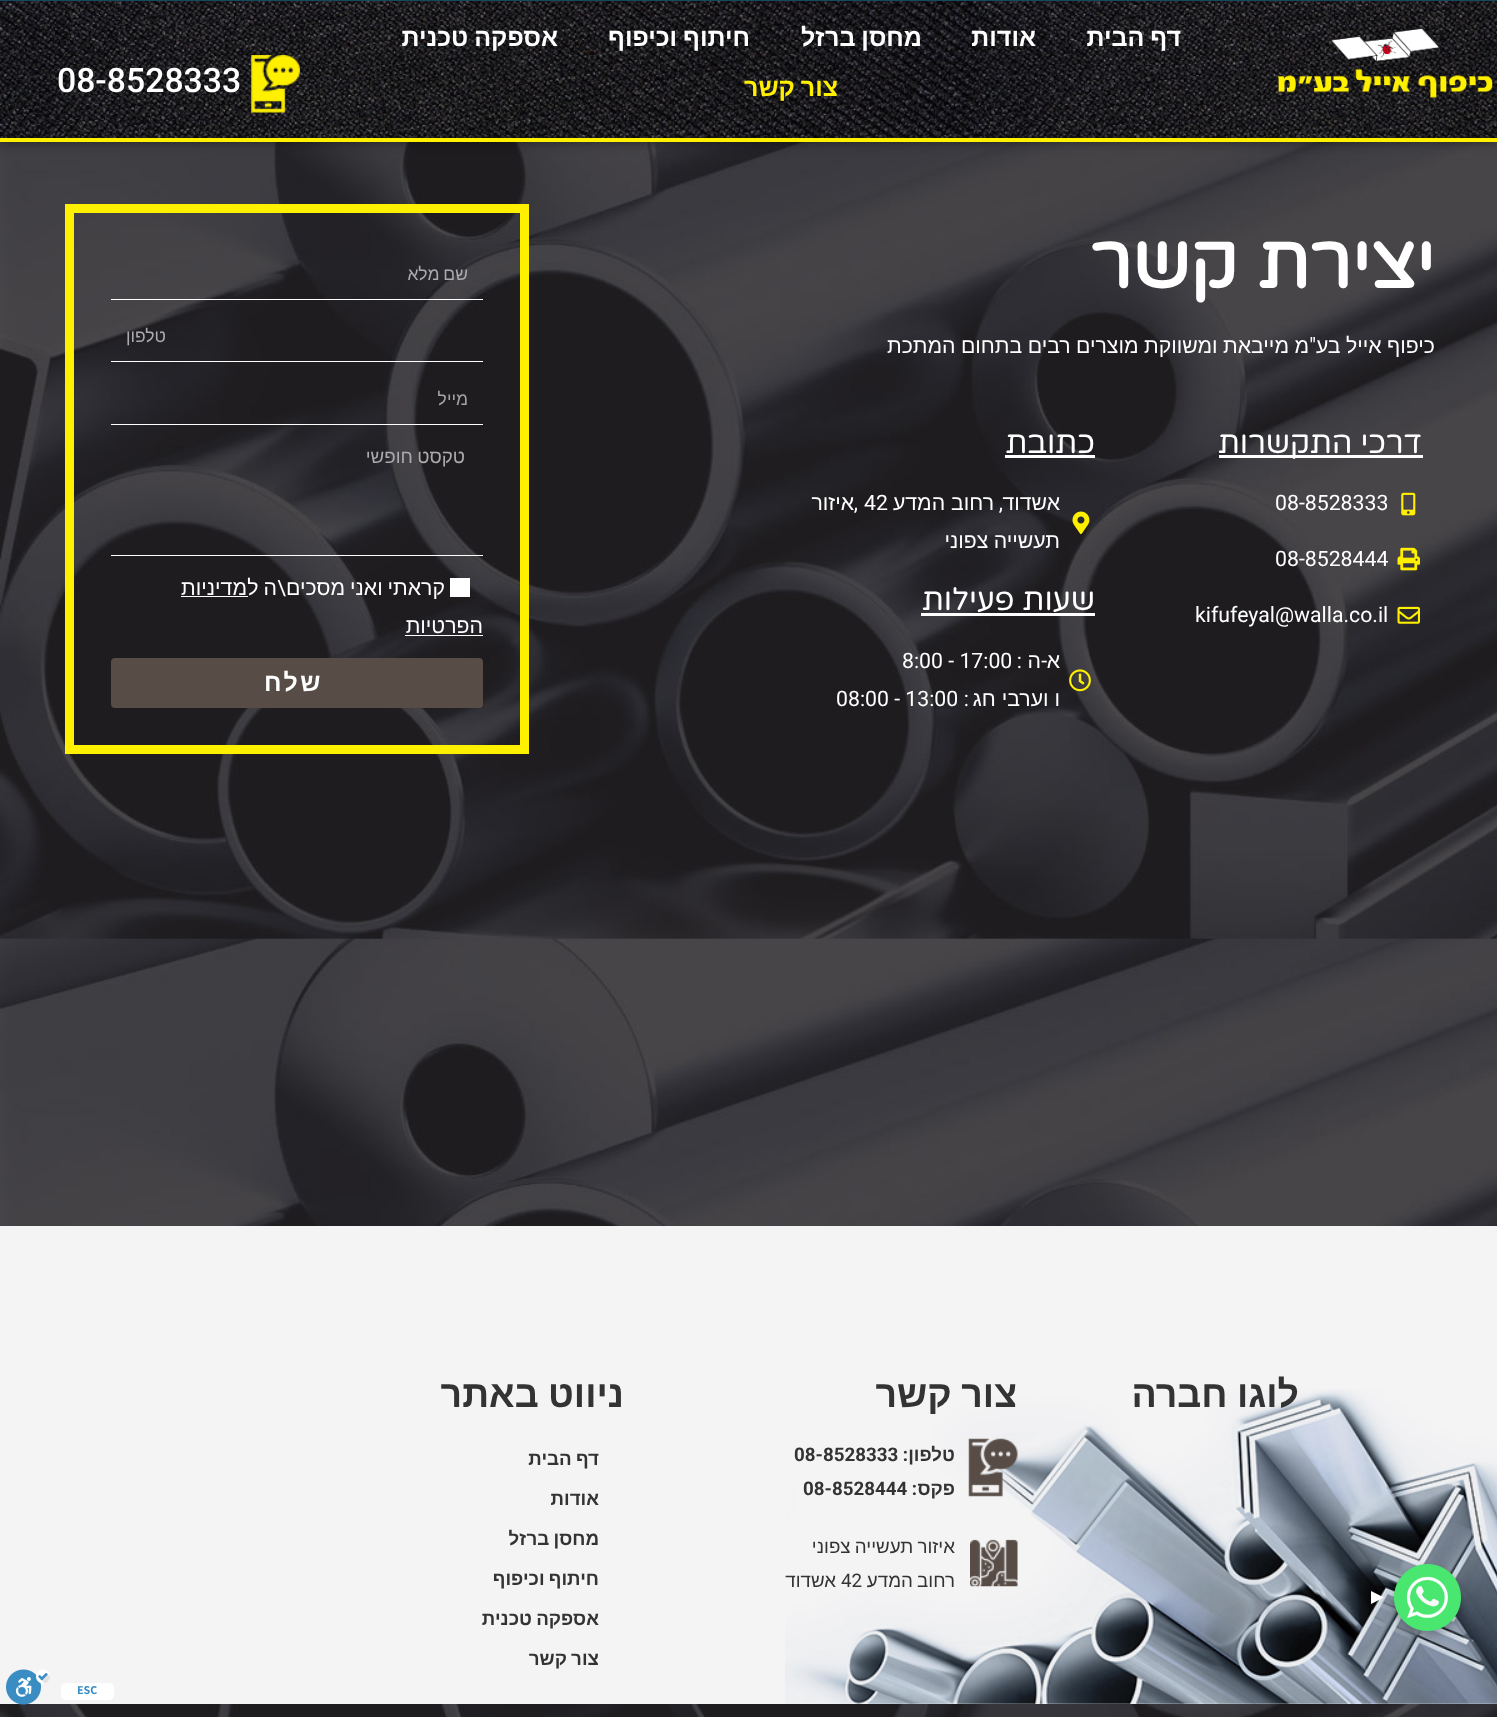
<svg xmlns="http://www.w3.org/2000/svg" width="1497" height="1717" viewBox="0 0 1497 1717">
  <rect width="100%" height="100%" fill="rgb(255,255,255)"/>
  <image x="0" y="142" width="1497" height="1575" href="pic1.png"/>
  <rect x="0" y="0" width="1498" height="141" fill="rgba(0,0,0,0.5)" filter="blur(6px)"/>
  <image x="0" y="1" width="1497" height="137" href="pic2.png"/>
  <rect x="0" y="138" width="1497" height="4" fill="rgb(255,240,0)"/>
  <image x="1278" y="28" width="215" height="70" href="pic3.png"/>
  <g font-family="Liberation Sans" font-size="25" font-weight="bold" direction="rtl" fill="rgb(255,255,255)">
    <text x="1181" y="46" word-spacing="-1">דף הבית</text>
    <text x="1036" y="46">אודות</text>
    <text x="922" y="46" word-spacing="-1">מחסן ברזל</text>
    <text x="750" y="46" word-spacing="-1">חיתוף וכיפוף</text>
    <text x="558" y="46" word-spacing="-1">אספקה טכנית</text>
  </g>
  <text x="838" y="96" word-spacing="-1" font-family="Liberation Sans" font-size="25" font-weight="bold" direction="rtl" fill="rgb(255,240,0)">צור קשר</text>
  <image x="251" y="55" width="49" height="58" href="pic4.png"/>
  <text x="57" y="92" font-family="Roboto" font-size="33.75" font-weight="500" fill="rgb(255,255,255)">08-8528333</text>
  <text x="1435" y="288" font-family="Varela Round" font-size="75" font-weight="bold" direction="rtl" fill="rgb(255,255,255)">יצירת קשר</text>
  <g font-family="Liberation Sans" font-size="21.25" direction="rtl" fill="rgb(255,255,255)">
    <text x="1435" y="353" word-spacing="-0.5">כיפוף אייל בע</text>
    <text x="1309" y="353" word-spacing="-0.5">מ מייבאת ומשווקת מוצרים רבים בתחום המתכת</text>
  </g>
  <text x="1316" y="353" font-family="Roboto" font-size="21.25" direction="rtl" fill="rgb(255,255,255)">"</text>
  <rect x="1219" y="455" width="204" height="3" fill="rgb(255,255,255)"/>
  <text x="1422" y="453" font-family="Varela Round" font-size="31.25" direction="rtl" fill="rgb(255,255,255)">דרכי התקשרות</text>
  <image x="1401" y="492" width="15" height="24" href="pic5.png"/>
  <text x="1275" y="510" font-family="Roboto" font-size="21.25" fill="rgb(255,255,255)">08-8528333</text>
  <image x="1397" y="547" width="23" height="24" href="pic6.png"/>
  <text x="1275" y="566" font-family="Roboto" font-size="21.25" fill="rgb(255,255,255)">08-8528444</text>
  <image x="1397" y="606" width="23" height="18" href="pic7.png"/>
  <text x="1195" y="622" font-family="Roboto" font-size="21.25" fill="rgb(255,255,255)">kifufeyal@walla.co.il</text>
  <text x="1095" y="453" font-family="Varela Round" font-size="31.25" direction="rtl" fill="rgb(255,255,255)">כתובת</text>
  <rect x="1005" y="455" width="90" height="3" fill="rgb(255,255,255)"/>
  <image x="1072" y="511" width="18" height="23" href="pic8.png"/>
  <text x="1060" y="510" font-family="Liberation Sans" font-size="21.25" direction="rtl" fill="rgb(255,255,255)">אשדוד</text>
  <text x="1003" y="510" font-family="Roboto" font-size="21.25" direction="rtl" fill="rgb(255,255,255)">,</text>
  <text x="994" y="510" font-family="Liberation Sans" font-size="21.25" direction="rtl" fill="rgb(255,255,255)">רחוב המדע</text>
  <text x="864" y="510" font-family="Roboto" font-size="21.25" fill="rgb(255,255,255)">42</text>
  <text x="858" y="510" font-family="Roboto" font-size="21.25" direction="rtl" fill="rgb(255,255,255)">,</text>
  <g font-family="Liberation Sans" font-size="21.25" direction="rtl" fill="rgb(255,255,255)">
    <text x="854" y="510">איזור</text>
    <text x="1060" y="548" word-spacing="-0.5">תעשייה צפוני</text>
  </g>
  <text x="1095" y="610" font-family="Varela Round" font-size="31.25" direction="rtl" fill="rgb(255,255,255)">שעות פעילות</text>
  <rect x="921" y="613" width="174" height="3" fill="rgb(255,255,255)"/>
  <image x="1069" y="669" width="22" height="23" href="pic9.png"/>
  <text x="1060" y="668" font-family="Liberation Sans" font-size="21.25" direction="rtl" fill="rgb(255,255,255)">א</text>
  <text x="1047" y="668" font-family="Roboto" font-size="21.25" direction="rtl" fill="rgb(255,255,255)">-</text>
  <text x="1041" y="668" font-family="Liberation Sans" font-size="21.25" direction="rtl" fill="rgb(255,255,255)">ה</text>
  <text x="1022" y="668" font-family="Roboto" font-size="21.25" direction="rtl" fill="rgb(255,255,255)">:</text>
  <text x="902" y="668" font-family="Roboto" font-size="21.25" fill="rgb(255,255,255)">8:00 - 17:00</text>
  <text x="1060" y="706" font-family="Liberation Sans" font-size="21.25" direction="rtl" fill="rgb(255,255,255)">ו וערבי חג</text>
  <text x="969" y="706" font-family="Roboto" font-size="21.25" direction="rtl" fill="rgb(255,255,255)">:</text>
  <text x="836" y="706" font-family="Roboto" font-size="21.25" fill="rgb(255,255,255)">08:00 - 13:00</text>
  <rect x="69.5" y="208.5" width="455" height="541" fill="none" stroke="rgb(255,240,0)" stroke-width="9"/>
  <rect x="111" y="299" width="372" height="1" fill="rgb(255,255,255)"/>
  <text x="468" y="280" word-spacing="-1" font-family="Liberation Sans" font-size="17.5" direction="rtl" fill="rgb(171,171,173)">שם מלא</text>
  <rect x="111" y="361" width="372" height="1" fill="rgb(255,255,255)"/>
  <text x="166" y="342" font-family="Liberation Sans" font-size="17.5" direction="rtl" fill="rgb(171,171,173)">טלפון</text>
  <rect x="111" y="424" width="372" height="1" fill="rgb(255,255,255)"/>
  <text x="468" y="405" font-family="Liberation Sans" font-size="17.5" direction="rtl" fill="rgb(165,164,165)">מייל</text>
  <rect x="111" y="555" width="372" height="1" fill="rgb(255,255,255)"/>
  <text x="465" y="463" word-spacing="-1" font-family="Liberation Sans" font-size="18.75" direction="rtl" fill="rgb(171,171,173)">טקסט חופשי</text>
  <rect x="450" y="578" width="20" height="19" fill="rgb(255,255,255)"/>
  <text x="445" y="595" word-spacing="-1" font-family="Liberation Sans" font-size="21.25" direction="rtl" fill="rgb(255,255,255)">קראתי ואני מסכים</text>
  <text x="286" y="595" font-family="Roboto" font-size="21.25" direction="rtl" fill="rgb(255,255,255)">\</text>
  <g font-family="Liberation Sans" font-size="21.25" direction="rtl" fill="rgb(255,255,255)">
    <text x="277" y="595" word-spacing="-1">ה ל</text>
    <text x="247" y="595">מדיניות</text>
  </g>
  <rect x="181" y="596" width="67" height="1" fill="rgb(255,255,255)"/>
  <text x="483" y="633" font-family="Liberation Sans" font-size="21.25" direction="rtl" fill="rgb(255,255,255)">הפרטיות</text>
  <rect x="405" y="635" width="78" height="1" fill="rgb(255,255,255)"/>
  <rect x="111" y="658" width="372" height="50" rx="4" fill="rgb(87,76,70)"/>
  <text x="323" y="691" font-family="Liberation Sans" font-size="25" font-weight="bold" letter-spacing="2.5" direction="rtl" fill="rgb(255,255,255)">שלח</text>
  <rect x="0" y="1226" width="1497" height="478" fill="rgb(244,244,244)"/>
  <image x="785" y="1389" width="712" height="315" href="pic10.png"/>
  <g font-family="Liberation Sans" font-size="37.5" font-weight="bold" direction="rtl" fill="rgb(51,51,51)">
    <text x="1299" y="1407" word-spacing="-1">לוגו חברה</text>
    <text x="1017" y="1407" word-spacing="-1">צור קשר</text>
  </g>
  <image x="968" y="1438" width="50" height="59" href="pic11.png"/>
  <text x="955" y="1461" font-family="Liberation Sans" font-size="18.75" font-weight="bold" direction="rtl" fill="rgb(51,51,51)">טלפון</text>
  <text x="908" y="1461" font-family="Roboto" font-size="18.75" font-weight="bold" direction="rtl" fill="rgb(51,51,51)">:</text>
  <text x="794" y="1461" font-family="Roboto" font-size="18.75" font-weight="bold" fill="rgb(51,51,51)">08-8528333</text>
  <text x="955" y="1495" font-family="Liberation Sans" font-size="18.75" font-weight="bold" direction="rtl" fill="rgb(51,51,51)">פקס</text>
  <text x="917" y="1495" font-family="Roboto" font-size="18.75" font-weight="bold" direction="rtl" fill="rgb(51,51,51)">:</text>
  <text x="803" y="1495" font-family="Roboto" font-size="18.75" font-weight="bold" fill="rgb(51,51,51)">08-8528444</text>
  <image x="970" y="1539" width="48" height="48" href="pic12.png"/>
  <g font-family="Liberation Sans" font-size="18.75" direction="rtl" fill="rgb(51,51,51)">
    <text>
      <tspan x="955" y="1553" word-spacing="-1">איזור תעשייה צפוני</tspan>
      <tspan x="955" y="1587" word-spacing="-1">רחוב המדע</tspan>
    </text>
  </g>
  <text x="841" y="1587" font-family="Roboto" font-size="18.75" fill="rgb(51,51,51)">42</text>
  <text x="836" y="1587" font-family="Liberation Sans" font-size="18.75" direction="rtl" fill="rgb(51,51,51)">אשדוד</text>
  <text x="624" y="1407" word-spacing="-1" font-family="Liberation Sans" font-size="37.5" font-weight="bold" direction="rtl" fill="rgb(51,51,51)">ניווט באתר</text>
  <g font-family="Liberation Sans" font-size="18.75" font-weight="bold" direction="rtl" fill="rgb(51,51,51)">
    <text x="599" y="1465" word-spacing="-1">דף הבית</text>
    <text x="599" y="1505">אודות</text>
    <text x="599" y="1545" word-spacing="-1">מחסן ברזל</text>
    <text x="599" y="1585" word-spacing="-1">חיתוף וכיפוף</text>
    <text x="599" y="1625" word-spacing="-1">אספקה טכנית</text>
    <text x="599" y="1665" word-spacing="-1">צור קשר</text>
  </g>
  <rect x="1394" y="1568" width="67" height="67" rx="33.5" fill="rgba(0,0,0,0.25)" filter="blur(4px)"/>
  <image x="1394" y="1564" width="67" height="67" href="pic13.png"/>
  <path d="M1371 1604V1591L1384 1597.5Z" fill="rgb(255,255,255)"/>
  <rect x="0" y="0" width="1497" height="1" fill="rgb(21,73,95)"/>
  <rect x="61" y="1683" width="53" height="17" rx="5" fill="rgb(255,255,255)"/>
  <text x="77" y="1694" font-family="Assistant" font-size="12" font-weight="bold" fill="rgb(58,141,194)">ESC</text>
  <image x="6" y="1669" width="44" height="36" href="pic14.png"/>
</svg>
